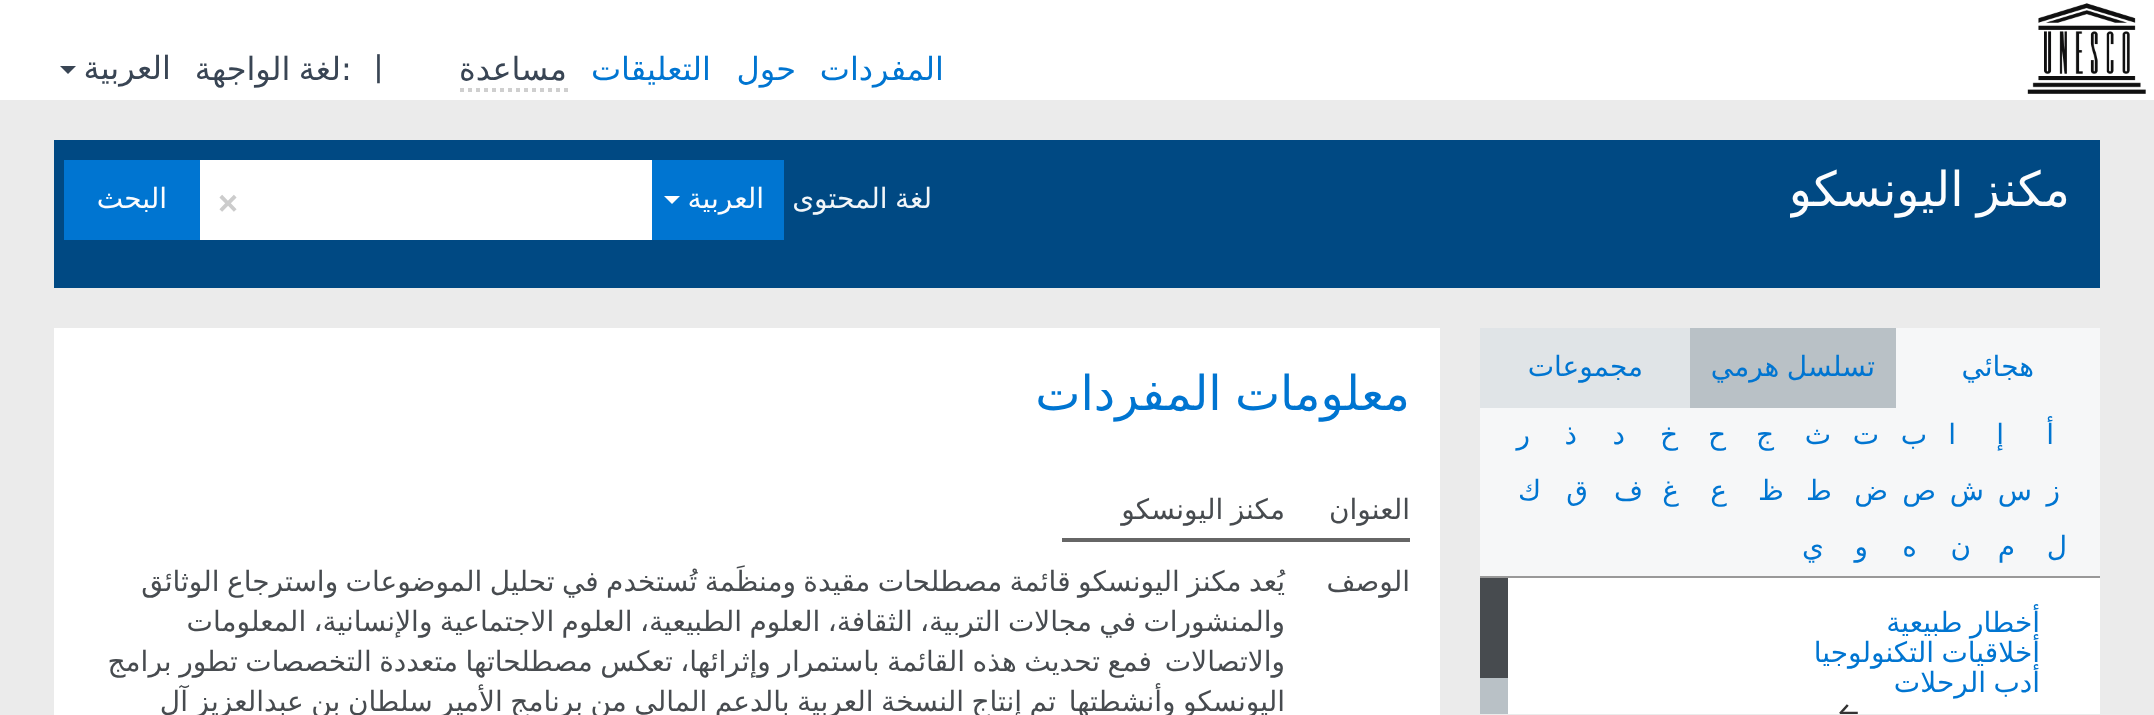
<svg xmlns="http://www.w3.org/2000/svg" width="2154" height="715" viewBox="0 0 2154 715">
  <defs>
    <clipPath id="clip1"><rect x="1790" y="140" width="280" height="100"/></clipPath>
    <clipPath id="clip2"><rect x="1510" y="578" width="560" height="136"/></clipPath>
  </defs>
  <rect width="100%" height="100%" fill="rgb(235,235,235)"/>
  <rect x="0" y="0" width="2154" height="100" fill="rgb(255,255,255)"/>
  <image x="2027" y="3" width="119" height="91" href="pic1.png"/>
  <g font-family="DejaVu Sans" font-size="32" direction="rtl" fill="rgb(0,117,209)">
    <text x="944" y="80">المفردات</text>
    <text x="796" y="80">حول</text>
    <text x="711" y="80">التعليقات</text>
  </g>
  <text x="567" y="80" font-family="DejaVu Sans" font-size="32" direction="rtl" fill="rgb(57,69,84)">مساعدة</text>
  <path d="M460 90H568" fill="none" stroke="rgb(207,207,207)" stroke-width="4" stroke-dasharray="4 4"/>
  <text x="372" y="80" font-family="Fira Sans" font-size="32" fill="rgb(57,69,84)">|</text>
  <text x="341" y="80" font-family="DejaVu Sans" font-size="32" fill="rgb(57,69,84)">:</text>
  <g font-family="DejaVu Sans" font-size="32" direction="rtl" fill="rgb(57,69,84)">
    <text x="341" y="80" word-spacing="-2">لغة الواجهة</text>
    <text x="171" y="79">العربية</text>
  </g>
  <path d="M60 66H76L68 74Z" fill="rgb(57,69,84)"/>
  <rect x="54" y="140" width="2046" height="148" fill="rgb(0,73,131)"/>
  <g clip-path="url(#clip1)">
    <text x="2070" y="206" word-spacing="-2" font-family="DejaVu Sans" font-size="48" direction="rtl" fill="rgb(252,253,254)">مكنز اليونسكو</text>
  </g>
  <text x="932" y="208" word-spacing="-1.5" font-family="DejaVu Sans" font-size="28" direction="rtl" fill="rgb(242,246,249)">لغة المحتوى</text>
  <rect x="652" y="160" width="132" height="80" fill="rgb(0,117,209)"/>
  <text x="764" y="208" font-family="DejaVu Sans" font-size="28" direction="rtl" fill="rgb(252,253,254)">العربية</text>
  <path d="M664 196H680L672 204Z" fill="rgb(255,255,255)"/>
  <rect x="200" y="160" width="452" height="80" fill="rgb(255,255,255)"/>
  <text x="216" y="218" font-family="Fira Sans" font-size="48" fill="rgb(204,204,204)">×</text>
  <rect x="64" y="160" width="136" height="80" fill="rgb(0,117,209)"/>
  <text x="167" y="208" font-family="DejaVu Sans" font-size="28" direction="rtl" fill="rgb(252,253,254)">البحث</text>
  <rect x="1480" y="328" width="210" height="80" fill="rgb(224,228,231)"/>
  <rect x="1896" y="328" width="204" height="80" fill="rgb(246,247,248)"/>
  <text x="2034" y="376" font-family="DejaVu Sans" font-size="28" direction="rtl" fill="rgb(0,117,209)">هجائي</text>
  <rect x="1690" y="328" width="206" height="80" fill="rgb(185,193,198)"/>
  <g font-family="DejaVu Sans" font-size="28" direction="rtl" fill="rgb(0,117,209)">
    <text x="1875" y="376" word-spacing="-1.5">تسلسل هرمي</text>
    <text x="1643" y="376">مجموعات</text>
  </g>
  <rect x="1480" y="408" width="620" height="168" fill="rgb(246,247,248)"/>
  <rect x="1480" y="576" width="620" height="2" fill="rgb(153,153,153)"/>
  <g font-family="DejaVu Sans" font-size="28" direction="rtl" fill="rgb(0,117,209)">
    <text x="2054" y="444">أ</text>
    <text x="2004" y="444">إ</text>
    <text x="1956" y="444">ا</text>
    <text x="1927" y="444">ب</text>
    <text x="1879" y="444">ت</text>
    <text x="1831" y="444">ث</text>
    <text x="1774" y="444">ج</text>
    <text x="1726" y="444">ح</text>
    <text x="1678" y="444">خ</text>
    <text x="1625" y="444">د</text>
    <text x="1577" y="444">ذ</text>
    <text x="1530" y="444">ر</text>
    <text x="2060" y="500">ز</text>
    <text x="2032" y="500">س</text>
    <text x="1984" y="500">ش</text>
    <text x="1936" y="500">ص</text>
    <text x="1888" y="500">ض</text>
    <text x="1832" y="500">ط</text>
    <text x="1784" y="500">ظ</text>
    <text x="1727" y="500">ع</text>
    <text x="1679" y="500">غ</text>
    <text x="1643" y="500">ف</text>
    <text x="1588" y="500">ق</text>
    <text x="1541" y="500">ك</text>
    <text x="2067" y="556">ل</text>
    <text x="2015" y="556">م</text>
    <text x="1971" y="556">ن</text>
    <text x="1917" y="556">ه</text>
    <text x="1868" y="556">و</text>
    <text x="1824" y="556">ي</text>
  </g>
  <rect x="1508" y="578" width="592" height="136" fill="rgb(255,255,255)"/>
  <g font-family="DejaVu Sans" font-size="28" direction="rtl" fill="rgb(0,117,209)">
    <text>
      <tspan x="2040" y="632" word-spacing="-1.5">أخطار طبيعية</tspan>
      <tspan x="2040" y="662" word-spacing="-1.5">أخلاقيات التكنولوجيا</tspan>
      <tspan x="2040" y="692" word-spacing="-1.5">أدب الرحلات</tspan>
    </text>
  </g>
  <g clip-path="url(#clip2)">
    <text x="1836" y="722" font-family="Fira Sans" font-size="28" fill="rgb(51,51,51)">←</text>
  </g>
  <rect x="1480" y="578" width="28" height="100" fill="rgb(71,75,79)"/>
  <rect x="1480" y="678" width="28" height="36" fill="rgb(185,193,198)"/>
  <rect x="54" y="328" width="1386" height="387" fill="rgb(255,255,255)"/>
  <text x="1410" y="410" word-spacing="-2" font-family="DejaVu Sans" font-size="48" direction="rtl" fill="rgb(0,117,209)">معلومات المفردات</text>
  <g font-family="DejaVu Sans" font-size="28" direction="rtl" fill="rgb(71,75,79)">
    <text x="1410" y="519">العنوان</text>
    <text x="1285" y="519" word-spacing="-1.5">مكنز اليونسكو</text>
  </g>
  <rect x="1062" y="538" width="348" height="4" fill="rgb(102,102,102)"/>
  <g font-family="DejaVu Sans" font-size="28" direction="rtl" fill="rgb(71,75,79)">
    <text x="1410" y="591">الوصف</text>
    <text>
      <tspan x="1285" y="591" word-spacing="-1.5">يُعد مكنز اليونسكو قائمة مصطلحات مقيدة ومنظَمة تُستخدم في تحليل الموضوعات واسترجاع الوثائق</tspan>
      <tspan x="1285" y="631" word-spacing="-1.5">والمنشورات في مجالات التربية، الثقافة، العلوم الطبيعية، العلوم الاجتماعية والإنسانية، المعلومات</tspan>
      <tspan x="1285" y="671">والاتصالات</tspan>
    </text>
    <text x="1152" y="671" word-spacing="-1.4">فمع تحديث هذه القائمة باستمرار وإثرائها، تعكس مصطلحاتها متعددة التخصصات تطور برامج</text>
    <text x="1285" y="711" word-spacing="-1.4">اليونسكو وأنشطتها</text>
    <text x="1056" y="711" word-spacing="-1.4">تم إنتاج النسخة العربية بالدعم المالي من برنامج الأمير سلطان بن عبدالعزيز آل</text>
  </g>
</svg>
